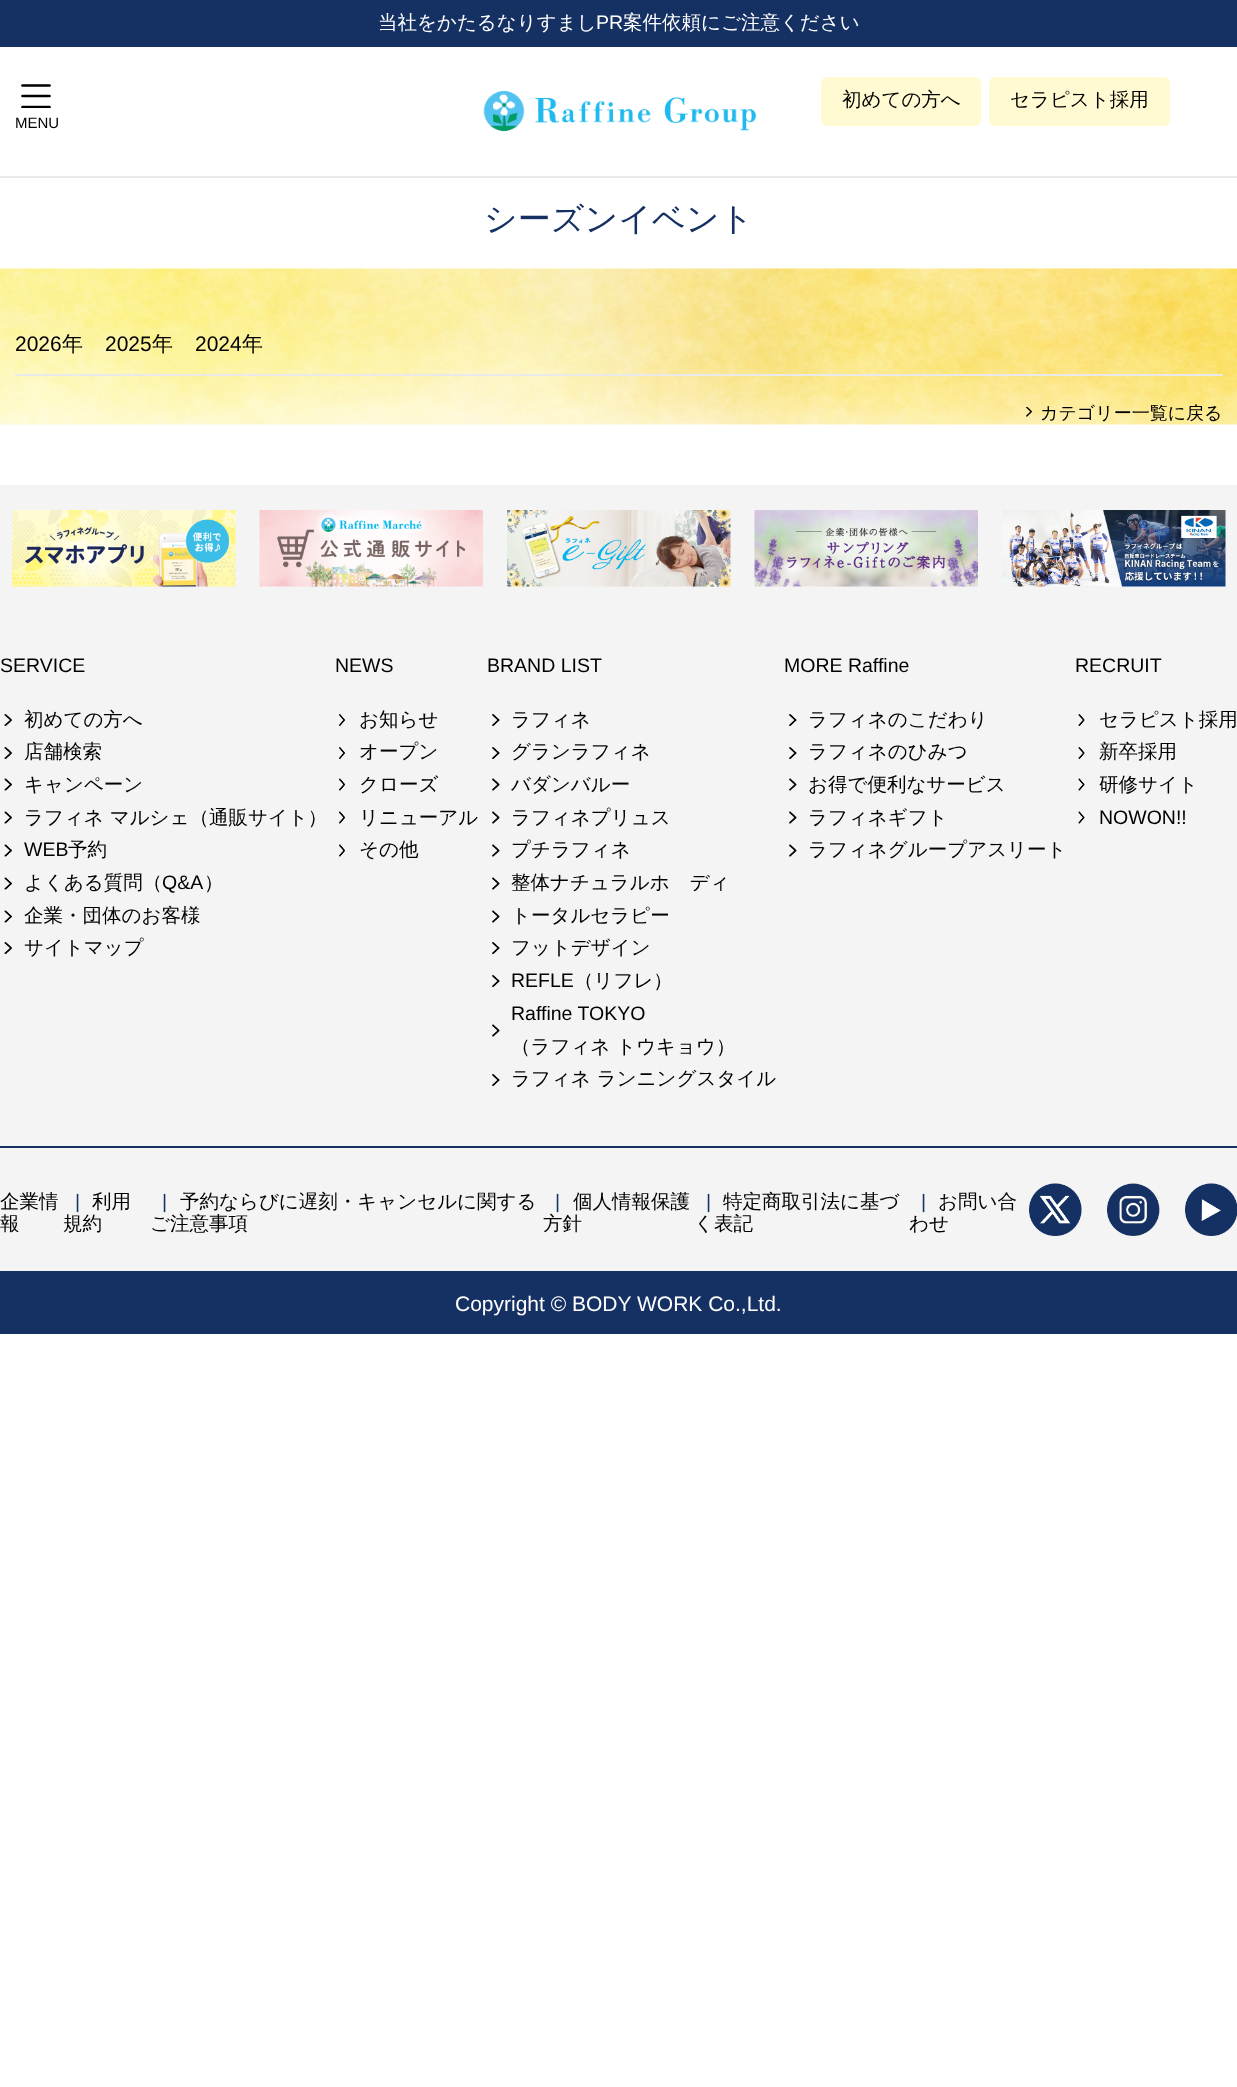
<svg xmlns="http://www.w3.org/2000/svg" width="1237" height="2087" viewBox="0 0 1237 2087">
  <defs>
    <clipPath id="clip1"><rect x="21" y="84" width="30" height="24"/></clipPath>
  </defs>
  <rect width="100%" height="100%" fill="rgb(255,255,255)"/>
  <rect x="0" y="176" width="1237" height="2" fill="rgb(234,234,234)"/>
  <rect x="0" y="0" width="1237" height="47" fill="rgb(21,49,99)"/>
  <text x="378" y="29" font-family="WenQuanYi Zen Hei" font-size="19.5" font-weight="500" fill="rgb(255,255,255)">当社をかたるなりすまし</text>
  <text x="596" y="29" font-family="Liberation Sans" font-size="19.5" fill="rgb(255,255,255)">PR</text>
  <text x="623" y="29" font-family="WenQuanYi Zen Hei" font-size="19.5" font-weight="500" fill="rgb(255,255,255)">案件依頼にご注意ください</text>
  <path d="M22.5 96H49.5" fill="none" stroke="rgb(0,0,0)" stroke-width="2.7" stroke-linecap="round" stroke-linejoin="round"/>
  <g clip-path="url(#clip1)">
    <path d="M22.5 107H49.5" fill="none" stroke="rgb(0,0,0)" stroke-width="2.7" stroke-linecap="round" stroke-linejoin="round"/>
  </g>
  <path d="M22.5 85.5H49.5" fill="none" stroke="rgb(0,0,0)" stroke-width="2.7" stroke-linecap="round" stroke-linejoin="round"/>
  <text x="15" y="128" font-family="Liberation Sans" font-size="15" fill="rgb(0,0,0)">MENU</text>
  <image x="483" y="90" width="274" height="42" href="pic1.png"/>
  <rect x="821" y="77" width="160" height="49" rx="6" fill="rgb(255,250,209)"/>
  <text x="842" y="106" font-family="WenQuanYi Zen Hei" font-size="19.5" font-weight="500" fill="rgb(0,0,0)">初めての方へ</text>
  <rect x="989" y="77" width="181" height="49" rx="6" fill="rgb(255,250,209)"/>
  <text x="1010" y="106" font-family="WenQuanYi Zen Hei" font-size="19.5" font-weight="500" fill="rgb(0,0,0)">セラピスト採用</text>
  <text x="484" y="230" font-family="WenQuanYi Zen Hei" font-size="33" font-weight="500" fill="rgb(21,49,99)">シーズンイベント</text>
  <image x="0" y="268" width="1237" height="157" href="pic2.png"/>
  <rect x="15" y="374" width="1208" height="2" fill="rgb(234,234,234)"/>
  <text x="15" y="351" font-family="Liberation Sans" font-size="21" fill="rgb(0,0,0)">2026</text>
  <text x="62" y="351" font-family="WenQuanYi Zen Hei" font-size="21" font-weight="500" fill="rgb(0,0,0)">年</text>
  <text x="105" y="351" font-family="Liberation Sans" font-size="21" fill="rgb(0,0,0)">2025</text>
  <text x="152" y="351" font-family="WenQuanYi Zen Hei" font-size="21" font-weight="500" fill="rgb(0,0,0)">年</text>
  <text x="195" y="351" font-family="Liberation Sans" font-size="21" fill="rgb(0,0,0)">2024</text>
  <text x="242" y="351" font-family="WenQuanYi Zen Hei" font-size="21" font-weight="500" fill="rgb(0,0,0)">年</text>
  <image x="1026" y="407" width="6" height="10" href="pic3.png"/>
  <text x="1040" y="419" font-family="WenQuanYi Zen Hei" font-size="18" font-weight="500" fill="rgb(0,0,0)">カテゴリー一覧に戻る</text>
  <rect x="0" y="485" width="1237" height="786" fill="rgb(244,244,244)"/>
  <image x="12" y="510" width="224" height="77" href="pic4.png"/>
  <image x="259" y="510" width="224" height="77" href="pic5.png"/>
  <image x="507" y="510" width="224" height="77" href="pic6.png"/>
  <image x="754" y="510" width="224" height="77" href="pic7.png"/>
  <image x="1002" y="510" width="224" height="77" href="pic8.png"/>
  <text x="0" y="672" font-family="Liberation Sans" font-size="19.5" fill="rgb(0,0,0)">SERVICE</text>
  <image x="4" y="714" width="8" height="12" href="pic9.png"/>
  <text x="24" y="726" font-family="WenQuanYi Zen Hei" font-size="19.5" font-weight="500" fill="rgb(0,0,0)">初めての方へ</text>
  <image x="4" y="747" width="8" height="12" href="pic9.png"/>
  <text x="24" y="758" font-family="WenQuanYi Zen Hei" font-size="19.5" font-weight="500" fill="rgb(0,0,0)">店舗検索</text>
  <image x="4" y="778" width="8" height="13" href="pic10.png"/>
  <text x="24" y="791" font-family="WenQuanYi Zen Hei" font-size="19.5" font-weight="500" fill="rgb(0,0,0)">キャンペーン</text>
  <image x="4" y="811" width="8" height="13" href="pic10.png"/>
  <text x="24" y="824" font-family="WenQuanYi Zen Hei" font-size="19.5" font-weight="500" fill="rgb(0,0,0)">ラフィネ マルシェ（通販サイト）</text>
  <image x="4" y="844" width="8" height="13" href="pic10.png"/>
  <text x="24" y="856" font-family="Liberation Sans" font-size="19.5" fill="rgb(0,0,0)">WEB</text>
  <text x="68" y="856" font-family="WenQuanYi Zen Hei" font-size="19.5" font-weight="500" fill="rgb(0,0,0)">予約</text>
  <image x="4" y="877" width="8" height="13" href="pic10.png"/>
  <text x="24" y="889" font-family="WenQuanYi Zen Hei" font-size="19.5" font-weight="500" fill="rgb(0,0,0)">よくある質問（</text>
  <text x="162" y="889" font-family="Liberation Sans" font-size="19.5" fill="rgb(0,0,0)">Q&amp;A</text>
  <text x="204" y="889" font-family="WenQuanYi Zen Hei" font-size="19.5" font-weight="500" fill="rgb(0,0,0)">）</text>
  <image x="4" y="910" width="8" height="13" href="pic10.png"/>
  <text x="24" y="922" font-family="WenQuanYi Zen Hei" font-size="19.5" font-weight="500" fill="rgb(0,0,0)">企業・団体のお客様</text>
  <image x="4" y="942" width="8" height="12" href="pic9.png"/>
  <text x="24" y="954" font-family="WenQuanYi Zen Hei" font-size="19.5" font-weight="500" fill="rgb(0,0,0)">サイトマップ</text>
  <text x="335" y="672" font-family="Liberation Sans" font-size="19.5" fill="rgb(0,0,0)">NEWS</text>
  <image x="339" y="714" width="6" height="12" href="pic11.png"/>
  <text x="359" y="726" font-family="WenQuanYi Zen Hei" font-size="19.5" font-weight="500" fill="rgb(0,0,0)">お知らせ</text>
  <image x="339" y="747" width="6" height="12" href="pic11.png"/>
  <text x="359" y="758" font-family="WenQuanYi Zen Hei" font-size="19.5" font-weight="500" fill="rgb(0,0,0)">オープン</text>
  <image x="339" y="778" width="6" height="13" href="pic12.png"/>
  <text x="359" y="791" font-family="WenQuanYi Zen Hei" font-size="19.5" font-weight="500" fill="rgb(0,0,0)">クローズ</text>
  <image x="339" y="811" width="6" height="13" href="pic12.png"/>
  <text x="359" y="824" font-family="WenQuanYi Zen Hei" font-size="19.5" font-weight="500" fill="rgb(0,0,0)">リニューアル</text>
  <image x="339" y="844" width="6" height="13" href="pic12.png"/>
  <text x="359" y="856" font-family="WenQuanYi Zen Hei" font-size="19.5" font-weight="500" fill="rgb(0,0,0)">その他</text>
  <text x="487" y="672" font-family="Liberation Sans" font-size="19.5" fill="rgb(0,0,0)">BRAND LIST</text>
  <image x="492" y="714" width="8" height="12" href="pic13.png"/>
  <text x="511" y="726" font-family="WenQuanYi Zen Hei" font-size="19.5" font-weight="500" fill="rgb(0,0,0)">ラフィネ</text>
  <image x="492" y="747" width="8" height="12" href="pic13.png"/>
  <text x="511" y="758" font-family="WenQuanYi Zen Hei" font-size="19.5" font-weight="500" fill="rgb(0,0,0)">グランラフィネ</text>
  <image x="492" y="778" width="8" height="13" href="pic14.png"/>
  <text x="511" y="791" font-family="WenQuanYi Zen Hei" font-size="19.5" font-weight="500" fill="rgb(0,0,0)">バダンバルー</text>
  <image x="492" y="811" width="8" height="13" href="pic14.png"/>
  <text x="511" y="824" font-family="WenQuanYi Zen Hei" font-size="19.5" font-weight="500" fill="rgb(0,0,0)">ラフィネプリュス</text>
  <image x="492" y="844" width="8" height="13" href="pic14.png"/>
  <text x="511" y="856" font-family="WenQuanYi Zen Hei" font-size="19.5" font-weight="500" fill="rgb(0,0,0)">プチラフィネ</text>
  <image x="492" y="877" width="8" height="13" href="pic14.png"/>
  <text x="511" y="889" font-family="WenQuanYi Zen Hei" font-size="19.5" font-weight="500" fill="rgb(0,0,0)">整体ナチュラルボディ</text>
  <image x="492" y="910" width="8" height="13" href="pic14.png"/>
  <text x="511" y="922" font-family="WenQuanYi Zen Hei" font-size="19.5" font-weight="500" fill="rgb(0,0,0)">トータルセラピー</text>
  <image x="492" y="942" width="8" height="12" href="pic13.png"/>
  <text x="511" y="954" font-family="WenQuanYi Zen Hei" font-size="19.5" font-weight="500" fill="rgb(0,0,0)">フットデザイン</text>
  <image x="492" y="975" width="8" height="12" href="pic13.png"/>
  <text x="511" y="987" font-family="Liberation Sans" font-size="19.5" fill="rgb(0,0,0)">REFLE</text>
  <text x="574" y="987" font-family="WenQuanYi Zen Hei" font-size="19.5" font-weight="500" fill="rgb(0,0,0)">（リフレ）</text>
  <image x="492" y="1024" width="8" height="13" href="pic14.png"/>
  <text x="511" y="1020" font-family="Liberation Sans" font-size="19.5" fill="rgb(0,0,0)">Raffine TOKYO</text>
  <text x="511" y="1053" font-family="WenQuanYi Zen Hei" font-size="19.5" font-weight="500" fill="rgb(0,0,0)">（ラフィネ トウキョウ）</text>
  <image x="492" y="1074" width="8" height="12" href="pic13.png"/>
  <text x="511" y="1085" font-family="WenQuanYi Zen Hei" font-size="19.5" font-weight="500" fill="rgb(0,0,0)">ラフィネ ランニングスタイル</text>
  <text x="784" y="672" font-family="Liberation Sans" font-size="19.5" fill="rgb(0,0,0)">MORE Raffine</text>
  <image x="789" y="714" width="8" height="12" href="pic13.png"/>
  <text x="808" y="726" font-family="WenQuanYi Zen Hei" font-size="19.5" font-weight="500" fill="rgb(0,0,0)">ラフィネのこだわり</text>
  <image x="789" y="747" width="8" height="12" href="pic13.png"/>
  <text x="808" y="758" font-family="WenQuanYi Zen Hei" font-size="19.5" font-weight="500" fill="rgb(0,0,0)">ラフィネのひみつ</text>
  <image x="789" y="778" width="8" height="13" href="pic14.png"/>
  <text x="808" y="791" font-family="WenQuanYi Zen Hei" font-size="19.5" font-weight="500" fill="rgb(0,0,0)">お得で便利なサービス</text>
  <image x="789" y="811" width="8" height="13" href="pic14.png"/>
  <text x="808" y="824" font-family="WenQuanYi Zen Hei" font-size="19.5" font-weight="500" fill="rgb(0,0,0)">ラフィネギフト</text>
  <image x="789" y="844" width="8" height="13" href="pic14.png"/>
  <text x="808" y="856" font-family="WenQuanYi Zen Hei" font-size="19.5" font-weight="500" fill="rgb(0,0,0)">ラフィネグループアスリート</text>
  <text x="1075" y="672" font-family="Liberation Sans" font-size="19.5" fill="rgb(0,0,0)">RECRUIT</text>
  <image x="1078" y="714" width="7" height="12" href="pic15.png"/>
  <text x="1099" y="726" font-family="WenQuanYi Zen Hei" font-size="19.5" font-weight="500" fill="rgb(0,0,0)">セラピスト採用</text>
  <image x="1078" y="747" width="7" height="12" href="pic15.png"/>
  <text x="1099" y="758" font-family="WenQuanYi Zen Hei" font-size="19.5" font-weight="500" fill="rgb(0,0,0)">新卒採用</text>
  <image x="1078" y="778" width="7" height="13" href="pic16.png"/>
  <text x="1099" y="791" font-family="WenQuanYi Zen Hei" font-size="19.5" font-weight="500" fill="rgb(0,0,0)">研修サイト</text>
  <image x="1078" y="811" width="7" height="13" href="pic16.png"/>
  <text x="1099" y="824" font-family="Liberation Sans" font-size="19.5" fill="rgb(0,0,0)">NOWON!!</text>
  <rect x="0" y="1146" width="1237" height="2" fill="rgb(21,49,99)"/>
  <g font-family="WenQuanYi Zen Hei" font-size="19.5" font-weight="500" fill="rgb(0,0,0)">
    <text>
      <tspan x="0" y="1208">企業情</tspan>
      <tspan x="0" y="1230">報</tspan>
    </text>
  </g>
  <text x="75" y="1208" font-family="Liberation Sans" font-size="19.5" fill="rgb(21,49,99)">|</text>
  <g font-family="WenQuanYi Zen Hei" font-size="19.5" font-weight="500" fill="rgb(0,0,0)">
    <text x="92" y="1208">利用</text>
    <text x="63" y="1230">規約</text>
  </g>
  <text x="162" y="1208" font-family="Liberation Sans" font-size="19.5" fill="rgb(21,49,99)">|</text>
  <g font-family="WenQuanYi Zen Hei" font-size="19.5" font-weight="500" fill="rgb(0,0,0)">
    <text x="180" y="1208">予約ならびに遅刻・キャンセルに関する</text>
    <text x="150" y="1230">ご注意事項</text>
  </g>
  <text x="555" y="1208" font-family="Liberation Sans" font-size="19.5" fill="rgb(21,49,99)">|</text>
  <g font-family="WenQuanYi Zen Hei" font-size="19.5" font-weight="500" fill="rgb(0,0,0)">
    <text x="573" y="1208">個人情報保護</text>
    <text x="543" y="1230">方針</text>
  </g>
  <text x="706" y="1208" font-family="Liberation Sans" font-size="19.5" fill="rgb(21,49,99)">|</text>
  <g font-family="WenQuanYi Zen Hei" font-size="19.5" font-weight="500" fill="rgb(0,0,0)">
    <text x="723" y="1208">特定商取引法に基づ</text>
    <text x="694" y="1230">く表記</text>
  </g>
  <text x="921" y="1208" font-family="Liberation Sans" font-size="19.5" fill="rgb(21,49,99)">|</text>
  <g font-family="WenQuanYi Zen Hei" font-size="19.5" font-weight="500" fill="rgb(0,0,0)">
    <text x="938" y="1208">お問い合</text>
    <text x="909" y="1230">わせ</text>
  </g>
  <image x="1029" y="1183" width="53" height="53" href="pic17.png"/>
  <image x="1107" y="1183" width="53" height="53" href="pic18.png"/>
  <image x="1185" y="1183" width="52" height="53" href="pic19.png"/>
  <rect x="0" y="1271" width="1237" height="63" fill="rgb(21,49,99)"/>
  <text x="455" y="1311" font-family="Liberation Sans" font-size="21" fill="rgb(255,255,255)">Copyright © BODY WORK Co.,Ltd.</text>
</svg>
